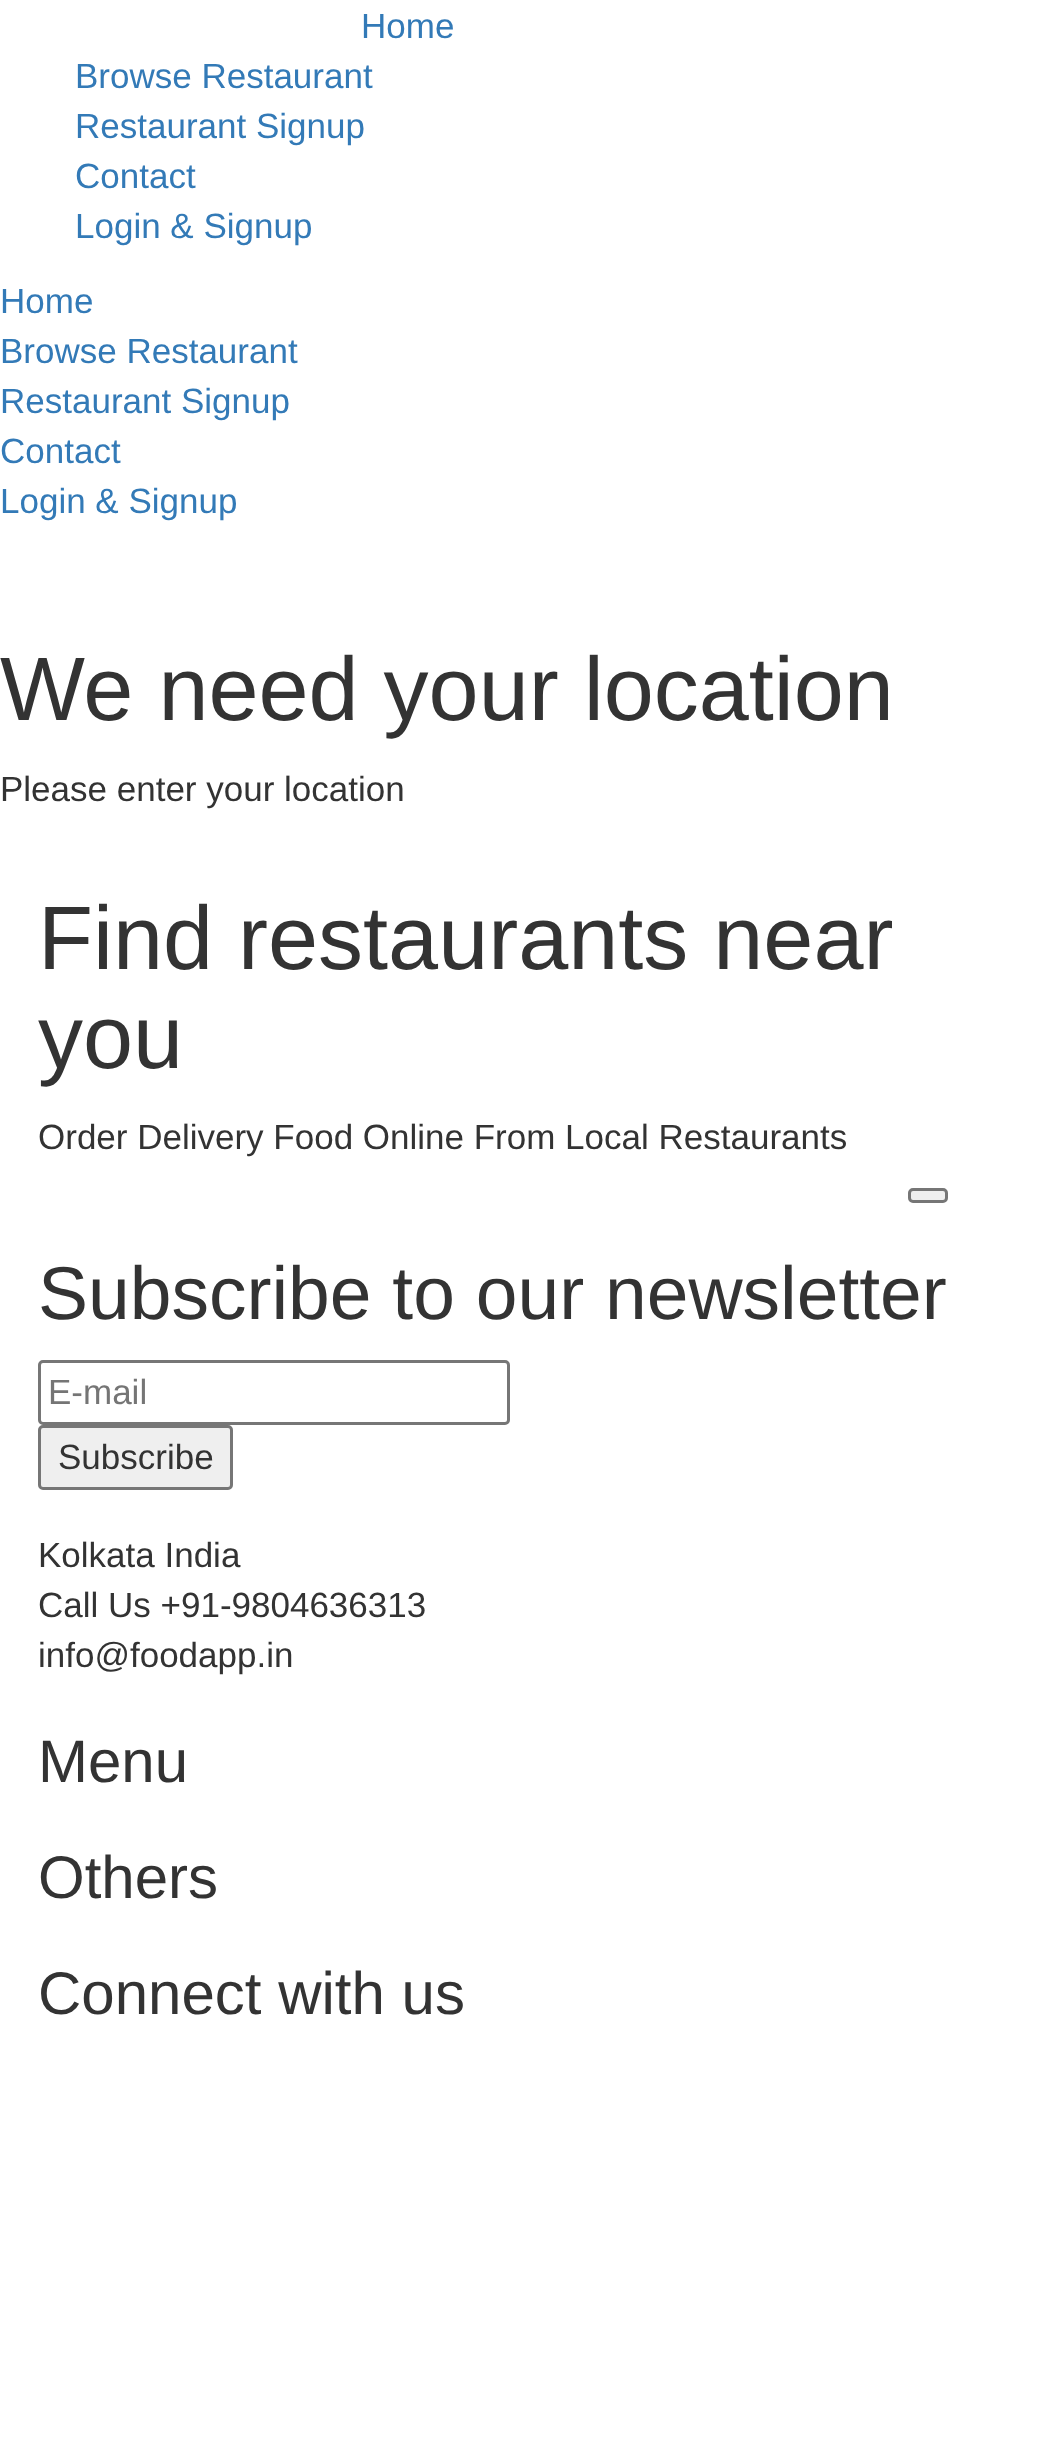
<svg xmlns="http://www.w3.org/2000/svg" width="1044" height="2463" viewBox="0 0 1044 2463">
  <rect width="100%" height="100%" fill="rgb(255,255,255)"/>
  <g font-family="Liberation Sans" font-size="35" fill="rgb(51,122,183)">
    <text x="361" y="38">Home</text>
    <text>
      <tspan x="75" y="88">Browse Restaurant</tspan>
      <tspan x="75" y="138">Restaurant Signup</tspan>
      <tspan x="75" y="188">Contact</tspan>
      <tspan x="75" y="238">Login &amp; Signup</tspan>
    </text>
    <text>
      <tspan x="0" y="313">Home</tspan>
      <tspan x="0" y="363">Browse Restaurant</tspan>
      <tspan x="0" y="413">Restaurant Signup</tspan>
      <tspan x="0" y="463">Contact</tspan>
      <tspan x="0" y="513">Login &amp; Signup</tspan>
    </text>
  </g>
  <text x="0" y="720" font-family="Liberation Sans" font-size="90" fill="rgb(51,51,51)">We need your location</text>
  <text x="0" y="801" font-family="Liberation Sans" font-size="35" fill="rgb(51,51,51)">Please enter your location</text>
  <g font-family="Liberation Sans" font-size="90" fill="rgb(51,51,51)">
    <text>
      <tspan x="38" y="969">Find restaurants near</tspan>
      <tspan x="38" y="1068">you</tspan>
    </text>
  </g>
  <text x="38" y="1149" font-family="Liberation Sans" font-size="35" fill="rgb(51,51,51)">Order Delivery Food Online From Local Restaurants</text>
  <rect x="909.5" y="1189.5" width="37" height="12" rx="3.5" fill="rgb(239,239,239)" stroke="rgb(118,118,118)" stroke-width="3"/>
  <text x="38" y="1319" font-family="Liberation Sans" font-size="75" fill="rgb(51,51,51)">Subscribe to our newsletter</text>
  <rect x="39.5" y="1361.5" width="469" height="62" rx="3.5" fill="none" stroke="rgb(118,118,118)" stroke-width="3"/>
  <text x="48" y="1404" font-family="Liberation Sans" font-size="35" fill="rgb(117,117,117)">E-mail</text>
  <rect x="39.5" y="1426.5" width="192" height="62" rx="3.5" fill="rgb(239,239,239)" stroke="rgb(118,118,118)" stroke-width="3"/>
  <g font-family="Liberation Sans" font-size="35" fill="rgb(51,51,51)">
    <text x="58" y="1469">Subscribe</text>
    <text>
      <tspan x="38" y="1567">Kolkata India</tspan>
      <tspan x="38" y="1617">Call Us +91-9804636313</tspan>
      <tspan x="38" y="1667">info@foodapp.in</tspan>
    </text>
  </g>
  <g font-family="Liberation Sans" font-size="60" fill="rgb(51,51,51)">
    <text>
      <tspan x="38" y="1782">Menu</tspan>
      <tspan x="38" y="1898">Others</tspan>
      <tspan x="38" y="2014">Connect with us</tspan>
    </text>
  </g>
</svg>
